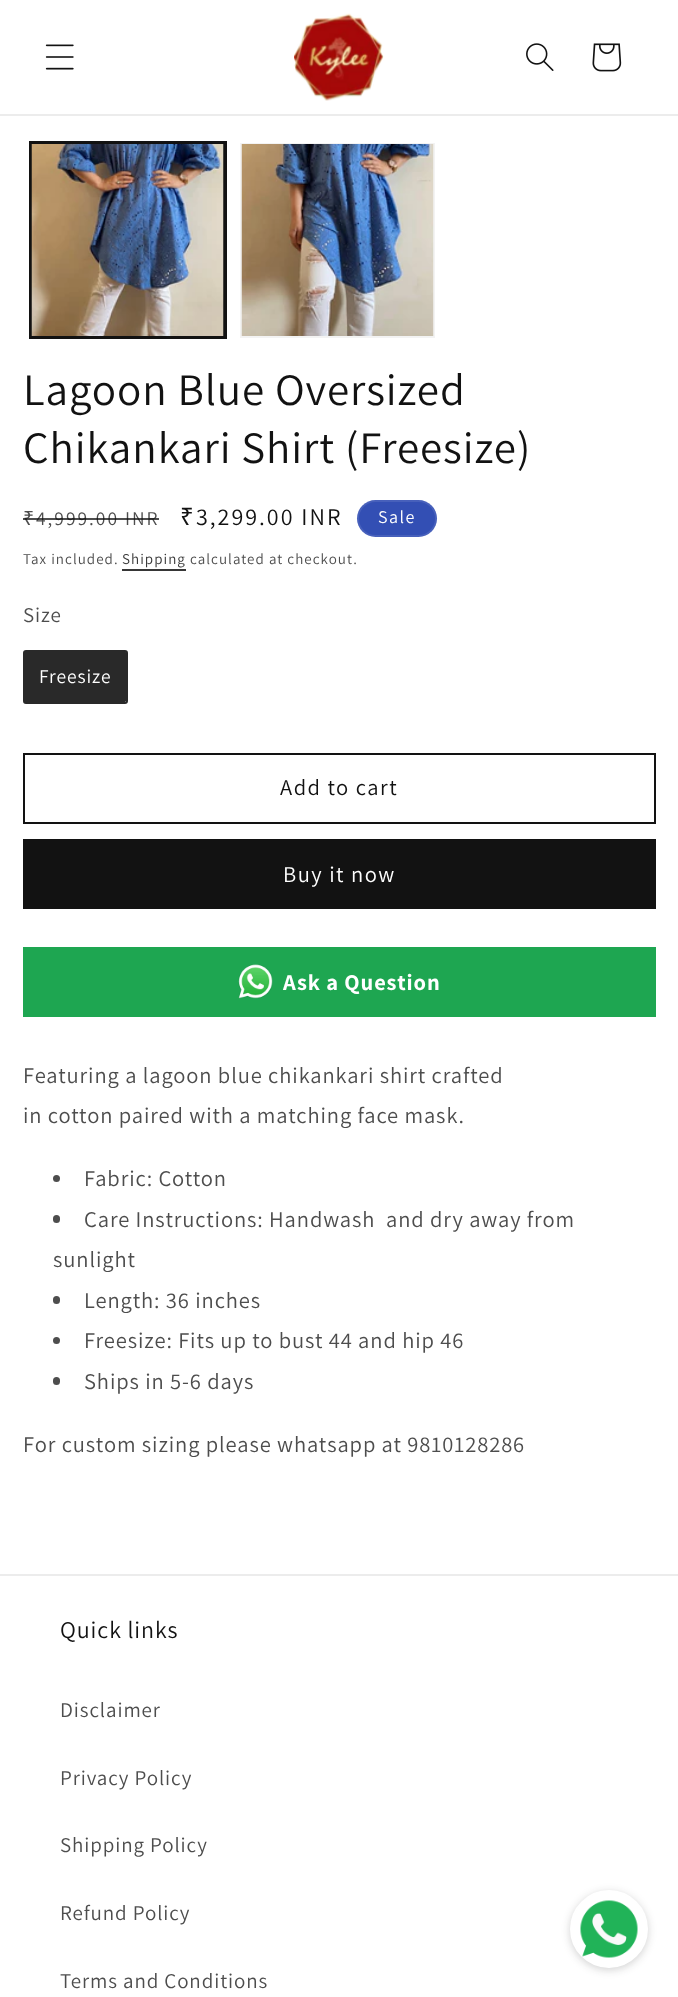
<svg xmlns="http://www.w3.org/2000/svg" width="678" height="1997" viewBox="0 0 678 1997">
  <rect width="100%" height="100%" fill="rgb(255,255,255)"/>
  <rect x="0" y="114" width="678" height="2" fill="rgb(236,236,236)"/>
  <image x="45" y="44" width="29" height="26" href="pic1.png"/>
  <image x="294" y="13" width="90" height="88" href="pic2.png"/>
  <image x="526" y="43" width="28" height="28" href="pic3.png"/>
  <image x="592" y="43" width="30" height="29" href="pic4.png"/>
  <rect x="30" y="142" width="196" height="196" fill="none" stroke="rgb(18,18,18)" stroke-width="2"/>
  <rect x="31" y="144" width="193" height="193" fill="none" stroke="rgb(18,18,18)" stroke-width="2"/>
  <image x="31" y="144" width="193" height="192" href="pic5.png"/>
  <rect x="241" y="144" width="193" height="193" fill="none" stroke="rgb(243,243,243)" stroke-width="2"/>
  <image x="241" y="144" width="193" height="192" href="pic6.png"/>
  <g font-family="Assistant" font-size="45" letter-spacing="0.9" fill="rgb(18,18,18)">
    <text>
      <tspan x="23" y="405">Lagoon Blue Oversized</tspan>
      <tspan x="23" y="463">Chikankari Shirt (Freesize)</tspan>
    </text>
  </g>
  <text x="23" y="525" font-family="Noto Sans" font-size="19.5" letter-spacing="2" fill="rgb(77,77,77)">₹</text>
  <text x="36" y="525" font-family="Assistant" font-size="19.5" letter-spacing="2" fill="rgb(77,77,77)">4,999.00 INR</text>
  <rect x="23" y="518" width="136" height="2" fill="rgba(18,18,18,0.75)"/>
  <text x="180" y="525" font-family="Noto Sans" font-size="24" letter-spacing="2" fill="rgb(18,18,18)">₹</text>
  <text x="196" y="525" font-family="Assistant" font-size="24" letter-spacing="2" fill="rgb(18,18,18)">3,299.00 INR</text>
  <rect x="357" y="500" width="80" height="37" rx="18.5" fill="rgb(51,79,180)"/>
  <rect x="358" y="501" width="78" height="35" rx="17.5" fill="none" stroke="rgba(255,255,255,0.1)" stroke-width="2"/>
  <text x="378" y="523" font-family="Assistant" font-size="18" letter-spacing="1.5" fill="rgb(255,255,255)">Sale</text>
  <text x="23" y="564" font-family="Assistant" font-size="15" letter-spacing="1.05" fill="rgb(77,77,77)">Tax included.</text>
  <text x="122" y="564" font-family="Assistant" font-size="15" letter-spacing="1.05" fill="rgb(54,54,54)">Shipping</text>
  <rect x="122" y="569" width="64" height="2" fill="rgb(54,54,54)"/>
  <text x="190" y="564" font-family="Assistant" font-size="15" letter-spacing="1.05" fill="rgb(77,77,77)">calculated at checkout.</text>
  <text x="23" y="622" font-family="Assistant" font-size="21" letter-spacing="0.9" fill="rgb(77,77,77)">Size</text>
  <rect x="24" y="651" width="103" height="52" rx="2" fill="none" stroke="rgb(41,41,41)" stroke-width="2"/>
  <rect x="24" y="651" width="102" height="51" rx="1.5" fill="rgb(41,41,41)"/>
  <text x="39" y="683" font-family="Assistant" font-size="19.5" letter-spacing="0.9" fill="rgb(255,255,255)">Freesize</text>
  <rect x="24" y="754" width="631" height="69" fill="none" stroke="rgb(18,18,18)" stroke-width="2"/>
  <text x="280" y="795" font-family="Assistant" font-size="22.5" letter-spacing="1.5" fill="rgb(18,18,18)">Add to cart</text>
  <rect x="23" y="839" width="633" height="70" fill="rgb(18,18,18)"/>
  <text x="283" y="882" font-family="Assistant" font-size="22.5" letter-spacing="1.5" fill="rgb(255,255,255)">Buy it now</text>
  <rect x="23" y="947" width="633" height="70" fill="rgb(30,166,81)"/>
  <image x="238" y="964" width="35" height="35" href="pic7.png"/>
  <text x="283" y="990" font-family="Assistant" font-size="22.5" font-weight="bold" letter-spacing="0.9" fill="rgb(255,255,255)">Ask a Question</text>
  <g font-family="Assistant" font-size="22.5" letter-spacing="0.9" fill="rgb(77,77,77)">
    <text>
      <tspan x="23" y="1083">Featuring a lagoon blue chikankari shirt crafted</tspan>
      <tspan x="23" y="1123">in cotton paired with a matching face mask.</tspan>
    </text>
  </g>
  <circle cx="56.5" cy="1178.5" r="3.5" fill="rgb(77,77,77)"/>
  <text x="84" y="1186" font-family="Assistant" font-size="22.5" letter-spacing="0.9" fill="rgb(77,77,77)">Fabric: Cotton</text>
  <rect x="53" y="1215" width="7" height="8" rx="3.5" fill="rgb(77,77,77)"/>
  <g font-family="Assistant" font-size="22.5" letter-spacing="0.9" fill="rgb(77,77,77)">
    <text x="84" y="1227">Care Instructions: Handwash</text>
    <text x="386" y="1227">and dry away from</text>
    <text x="53" y="1267">sunlight</text>
  </g>
  <rect x="53" y="1296" width="7" height="8" rx="3.5" fill="rgb(77,77,77)"/>
  <text x="84" y="1308" font-family="Assistant" font-size="22.5" letter-spacing="0.9" fill="rgb(77,77,77)">Length: 36 inches</text>
  <circle cx="56.5" cy="1340.5" r="3.5" fill="rgb(77,77,77)"/>
  <text x="84" y="1348" font-family="Assistant" font-size="22.5" letter-spacing="0.9" fill="rgb(77,77,77)">Freesize: Fits up to bust 44 and hip 46</text>
  <rect x="53" y="1377" width="7" height="8" rx="3.5" fill="rgb(77,77,77)"/>
  <g font-family="Assistant" font-size="22.5" letter-spacing="0.9" fill="rgb(77,77,77)">
    <text x="84" y="1389">Ships in 5-6 days</text>
    <text x="23" y="1452">For custom sizing please whatsapp at 9810128286</text>
  </g>
  <rect x="0" y="1574" width="678" height="2" fill="rgb(236,236,236)"/>
  <text x="60" y="1638" font-family="Assistant" font-size="24" letter-spacing="0.9" fill="rgb(18,18,18)">Quick links</text>
  <g font-family="Assistant" font-size="21" letter-spacing="0.9" fill="rgb(77,77,77)">
    <text x="60" y="1717">Disclaimer</text>
    <text x="60" y="1785">Privacy Policy</text>
    <text x="60" y="1852">Shipping Policy</text>
    <text x="60" y="1920">Refund Policy</text>
    <text x="60" y="1988">Terms and Conditions</text>
  </g>
  <rect x="570" y="1892" width="78" height="78" rx="39" fill="rgba(27,27,27,0.2)" filter="blur(4.5px)"/>
  <circle cx="609" cy="1929" r="38" fill="rgb(255,255,255)" stroke="rgb(255,255,255)" stroke-width="2"/>
  <image x="580" y="1900" width="58" height="58" href="pic8.png"/>
</svg>
